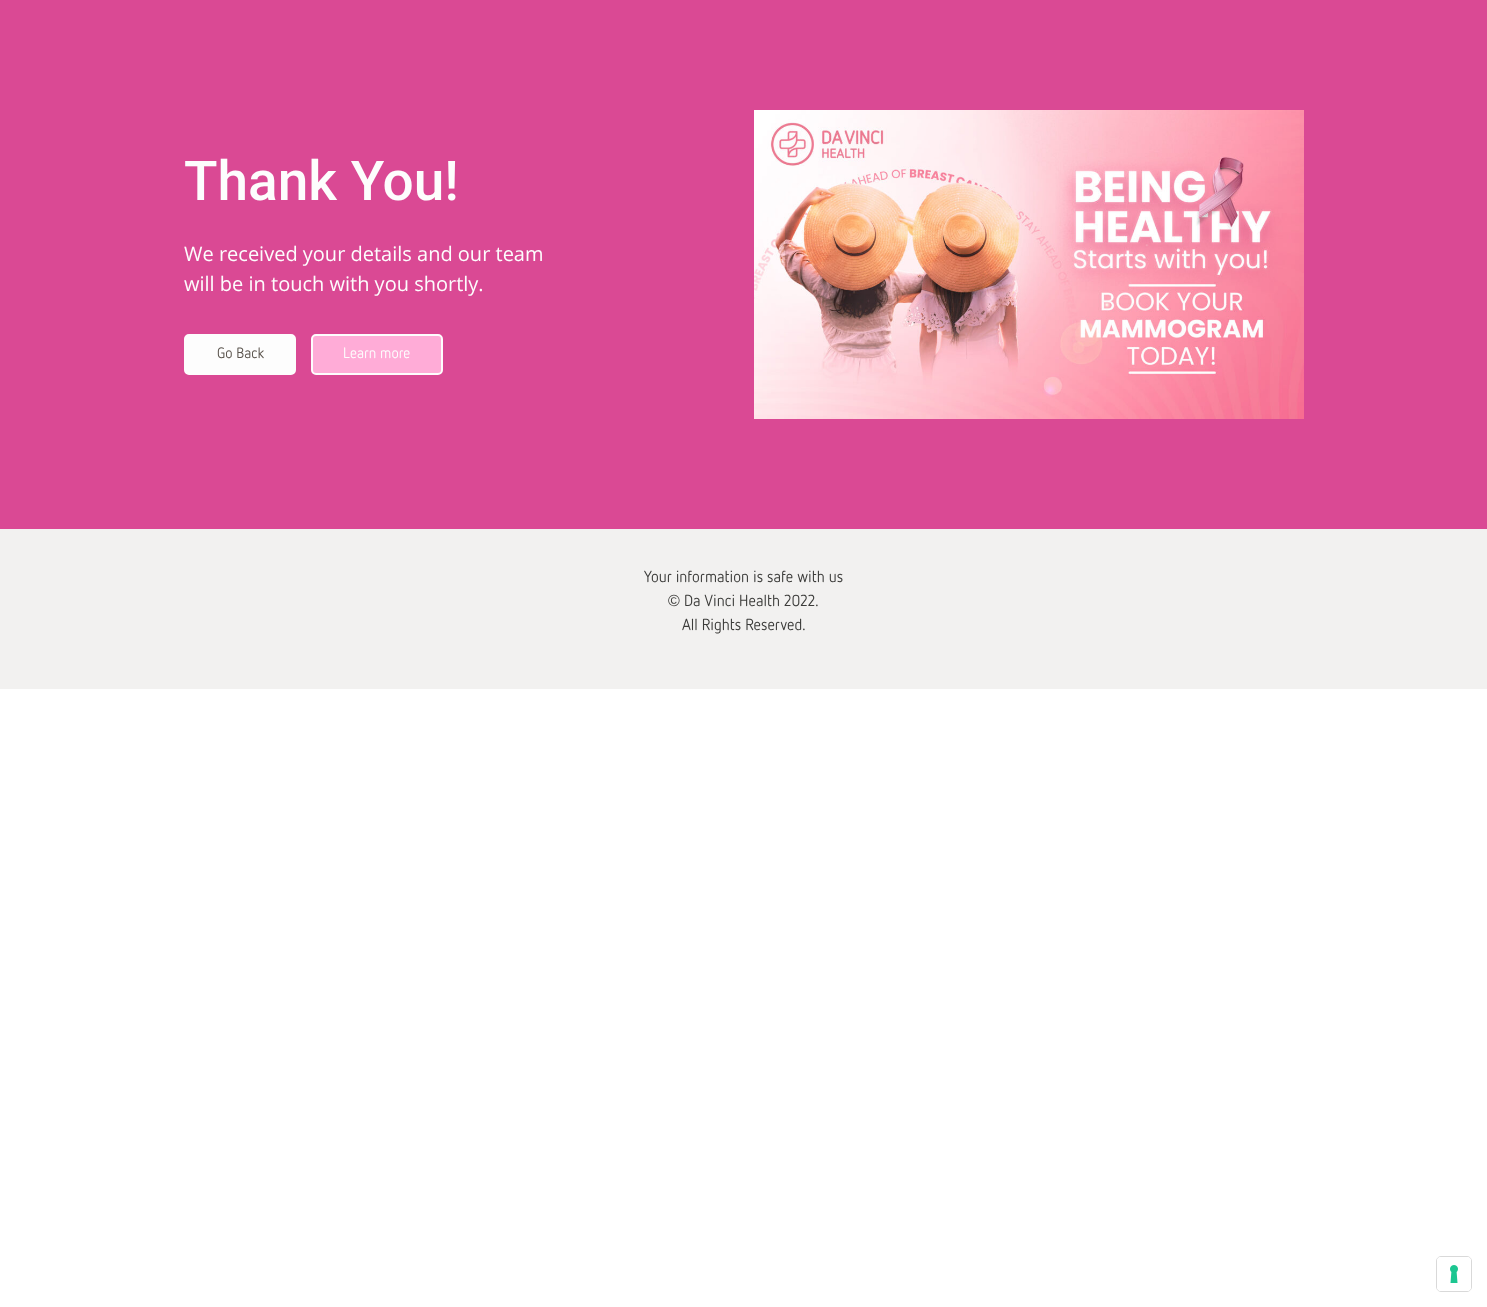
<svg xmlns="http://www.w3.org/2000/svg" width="1487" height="1307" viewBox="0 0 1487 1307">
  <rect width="100%" height="100%" fill="rgb(255,255,255)"/>
  <rect x="0" y="0" width="1487" height="529" fill="rgb(218,73,148)"/>
  <text x="184" y="200" font-family="Roboto" font-size="55" font-weight="500" fill="rgb(253,253,253)">Thank You!</text>
  <g font-family="Open Sans" font-size="20" fill="rgb(253,253,253)">
    <text>
      <tspan x="184" y="261">We received your details and our team</tspan>
      <tspan x="184" y="291">will be in touch with you shortly.</tspan>
    </text>
  </g>
  <rect x="185.5" y="335.5" width="109" height="38" rx="3.5" fill="rgb(253,253,253)" stroke="rgb(253,253,253)" stroke-width="3"/>
  <text x="217" y="358" font-family="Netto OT" font-size="15" fill="rgb(93,87,80)">Go Back</text>
  <rect x="312" y="335" width="130" height="39" rx="4" fill="rgb(255,172,215)" stroke="rgb(253,253,253)" stroke-width="2"/>
  <text x="343" y="358" font-family="Netto OT" font-size="15" fill="rgb(253,253,253)">Learn more</text>
  <image x="754" y="110" width="550" height="309" href="pic1.png"/>
  <rect x="0" y="529" width="1487" height="160" fill="rgb(242,241,240)"/>
  <text x="644" y="582" font-family="Netto OT" font-size="16" fill="rgb(60,60,58)">Your information is safe with us</text>
  <text x="668" y="606" font-family="Liberation Sans" font-size="16" fill="rgb(60,60,58)">©</text>
  <g font-family="Netto OT" font-size="16" fill="rgb(60,60,58)">
    <text x="684" y="606">Da Vinci Health 2022.</text>
    <text x="682" y="630">All Rights Reserved.</text>
  </g>
  <rect x="1436.5" y="1256.5" width="35" height="35" rx="4.5" fill="none" stroke="rgb(217,217,217)"/>
  <rect x="1437" y="1257" width="34" height="34" rx="4" fill="rgb(255,255,255)"/>
  <image x="1450" y="1265" width="8" height="18" href="pic2.png"/>
</svg>
